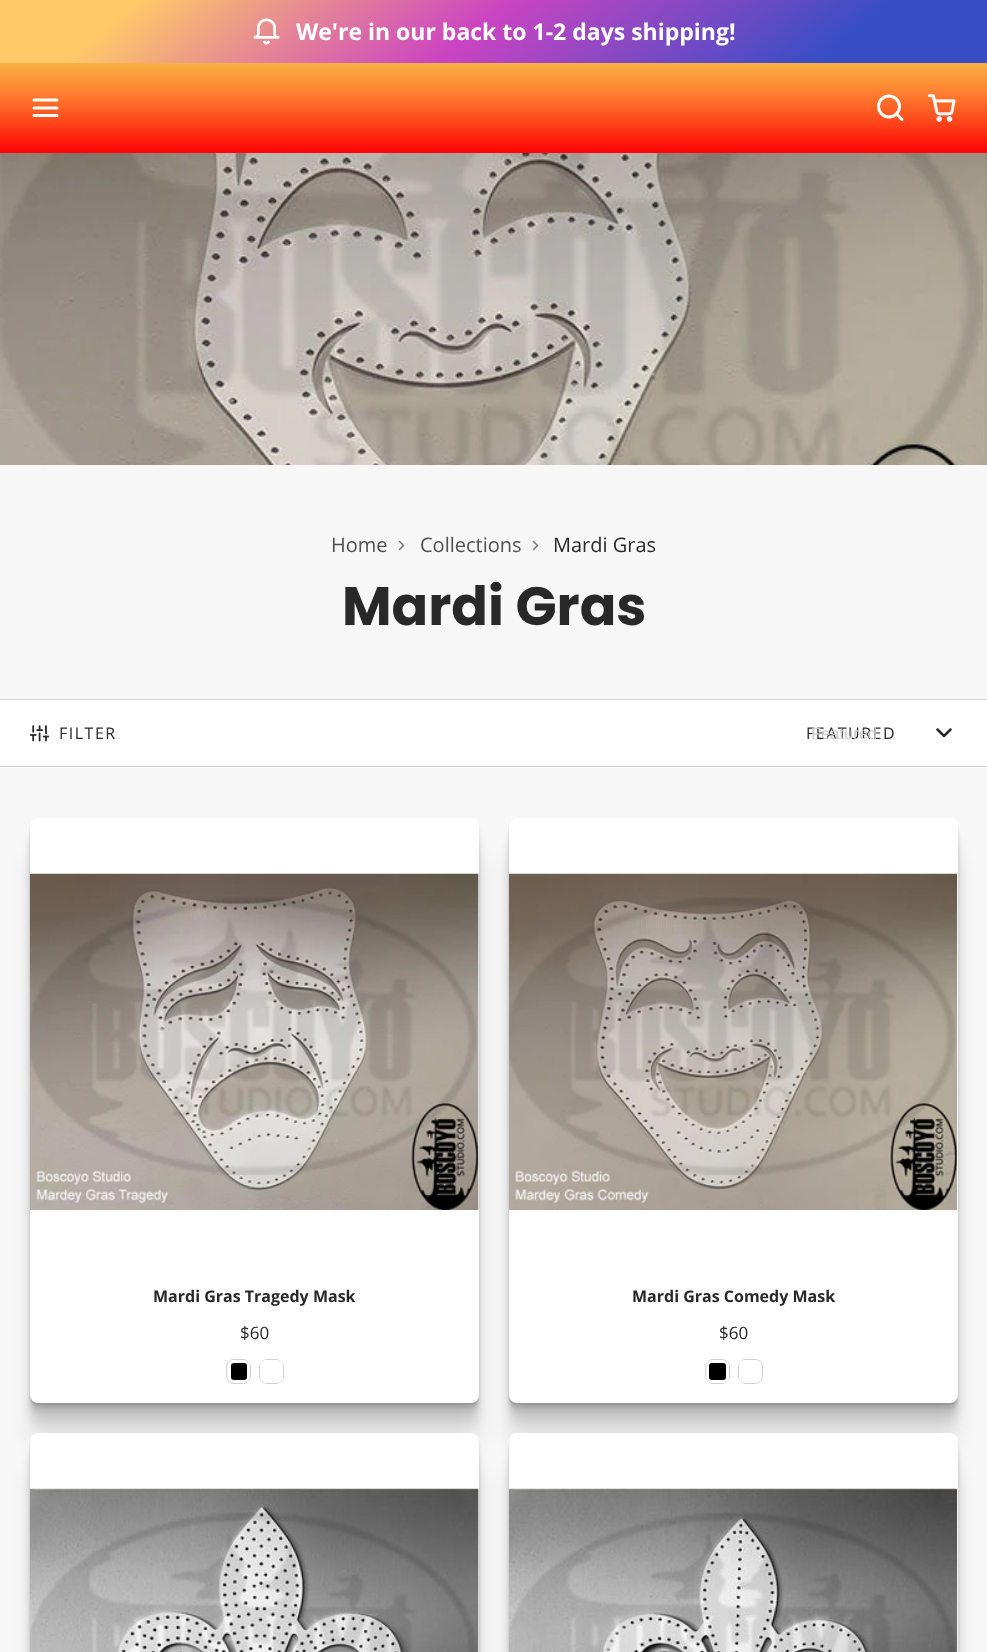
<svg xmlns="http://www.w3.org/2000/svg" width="987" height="1652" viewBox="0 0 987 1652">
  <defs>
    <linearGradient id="g1" gradientUnits="userSpaceOnUse" x1="713" y1="293" x2="274" y2="-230"><stop offset="0.16" stop-color="rgb(56,78,197)"/><stop offset="0.52" stop-color="rgb(203,68,194)"/><stop offset="0.87" stop-color="rgb(255,201,104)"/></linearGradient>
    <linearGradient id="g2" gradientUnits="userSpaceOnUse" x1="494" y1="62" x2="494" y2="153"><stop offset="0" stop-color="rgb(252,155,9)" stop-opacity="0.75"/><stop offset="0.97" stop-color="rgb(255,7,7)"/></linearGradient>
  </defs>
  <rect width="100%" height="100%" fill="rgb(247,247,247)"/>
  <rect x="0" y="0" width="987" height="63" fill="url(#g1)"/>
  <image x="253" y="18" width="27" height="27" href="pic1.png"/>
  <text x="296" y="40" font-family="Open Sans" font-size="23" font-weight="bold" fill="rgb(255,255,255)">We're in our back to 1-2 days shipping!</text>
  <rect x="0" y="63" width="987" height="90" fill="url(#g2)"/>
  <path d="M34 108H57M34 100H57M34 115.5H57" fill="none" stroke="rgb(255,255,255)" stroke-width="3" stroke-linecap="round" stroke-linejoin="round"/>
  <circle cx="889" cy="106.5" r="10.5" fill="none" stroke="rgb(255,255,255)" stroke-width="3"/>
  <path d="M902 119.5L896.5 114" fill="none" stroke="rgb(255,255,255)" stroke-width="3" stroke-linecap="round" stroke-linejoin="round"/>
  <image x="928" y="94" width="28" height="28" href="pic2.png"/>
  <image x="0" y="153" width="987" height="312" href="pic3.png"/>
  <text x="331" y="552" font-family="Open Sans" font-size="20" fill="rgb(81,81,81)">Home</text>
  <path d="M399.5 549.5L403.5 545.5L399.5 541.5" fill="none" stroke="rgb(115,115,115)" stroke-width="1.5" stroke-linecap="round" stroke-linejoin="round"/>
  <text x="420" y="552" font-family="Open Sans" font-size="20" fill="rgb(81,81,81)">Collections</text>
  <path d="M533.5 549.5L537.5 545.5L533.5 541.5" fill="none" stroke="rgb(115,115,115)" stroke-width="1.5" stroke-linecap="round" stroke-linejoin="round"/>
  <text x="553" y="552" font-family="Open Sans" font-size="20" fill="rgb(40,40,40)">Mardi Gras</text>
  <text x="342" y="625" font-family="Poppins" font-size="54" font-weight="bold" fill="rgb(40,40,40)">Mardi Gras</text>
  <rect x="0" y="700" width="987" height="68" fill="rgb(255,255,255)"/>
  <rect x="0" y="699" width="987" height="1" fill="rgb(209,209,209)"/>
  <rect x="0" y="766" width="987" height="1" fill="rgb(209,209,209)"/>
  <image x="30" y="725" width="19" height="17" href="pic4.png"/>
  <g font-family="Open Sans" font-size="16" letter-spacing="1.5" fill="rgb(40,40,40)">
    <text x="59" y="739">FILTER</text>
    <text x="806" y="739">FEATURED</text>
  </g>
  <text x="811" y="739" font-family="Liberation Sans" font-size="16.5" fill="rgb(202,202,202)">Featured</text>
  <path d="M937.5 729.5L944 736L950.5 729.5" fill="none" stroke="rgb(40,40,40)" stroke-width="2.5" stroke-linecap="round" stroke-linejoin="round"/>
  <rect x="30" y="858" width="449" height="585" rx="8" fill="rgba(0,0,0,0.09)" filter="blur(10px)"/>
  <rect x="30" y="838" width="449" height="585" rx="8" fill="rgba(0,0,0,0.09)" filter="blur(5px)"/>
  <rect x="30" y="828" width="449" height="585" rx="8" fill="rgba(0,0,0,0.09)" filter="blur(2.5px)"/>
  <rect x="30" y="823" width="449" height="585" rx="8" fill="rgba(0,0,0,0.09)" filter="blur(1px)"/>
  <rect x="30" y="820" width="449" height="585" rx="8" fill="rgba(0,0,0,0.09)" filter="blur(0.5px)"/>
  <rect x="30" y="818" width="449" height="585" rx="8" fill="rgb(255,255,255)"/>
  <image x="30" y="873" width="449" height="337" href="pic5.png"/>
  <text x="153" y="1302" font-family="Open Sans" font-size="16" font-weight="bold" fill="rgb(40,40,40)">Mardi Gras Tragedy Mask</text>
  <text x="240" y="1339" font-family="Open Sans" font-size="17" fill="rgb(40,40,40)">$60</text>
  <rect x="226.5" y="1359.5" width="24" height="24" rx="7.5" fill="none" stroke="rgb(209,209,209)"/>
  <rect x="229.5" y="1361.5" width="19" height="20" rx="4.5" fill="rgb(0,0,0)" stroke="rgb(255,255,255)" stroke-width="3"/>
  <rect x="259.5" y="1359.5" width="24" height="24" rx="7.5" fill="none" stroke="rgb(209,209,209)"/>
  <rect x="261.5" y="1361.5" width="20" height="20" rx="4.5" fill="rgb(255,255,255)" stroke="rgb(255,255,255)" stroke-width="3"/>
  <rect x="509" y="858" width="449" height="585" rx="8" fill="rgba(0,0,0,0.09)" filter="blur(10px)"/>
  <rect x="509" y="838" width="449" height="585" rx="8" fill="rgba(0,0,0,0.09)" filter="blur(5px)"/>
  <rect x="509" y="828" width="449" height="585" rx="8" fill="rgba(0,0,0,0.09)" filter="blur(2.5px)"/>
  <rect x="509" y="823" width="449" height="585" rx="8" fill="rgba(0,0,0,0.09)" filter="blur(1px)"/>
  <rect x="509" y="820" width="449" height="585" rx="8" fill="rgba(0,0,0,0.09)" filter="blur(0.5px)"/>
  <rect x="509" y="818" width="449" height="585" rx="8" fill="rgb(255,255,255)"/>
  <image x="509" y="873" width="449" height="337" href="pic6.png"/>
  <text x="632" y="1302" font-family="Open Sans" font-size="16" font-weight="bold" fill="rgb(40,40,40)">Mardi Gras Comedy Mask</text>
  <text x="719" y="1339" font-family="Open Sans" font-size="17" fill="rgb(40,40,40)">$60</text>
  <rect x="705.5" y="1359.5" width="24" height="24" rx="7.5" fill="none" stroke="rgb(209,209,209)"/>
  <rect x="707.5" y="1361.5" width="20" height="20" rx="4.5" fill="rgb(0,0,0)" stroke="rgb(255,255,255)" stroke-width="3"/>
  <rect x="738.5" y="1359.5" width="24" height="24" rx="7.5" fill="none" stroke="rgb(209,209,209)"/>
  <rect x="740.5" y="1361.5" width="19" height="20" rx="4.5" fill="rgb(255,255,255)" stroke="rgb(255,255,255)" stroke-width="3"/>
  <rect x="30" y="1473" width="449" height="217" rx="8" fill="rgba(0,0,0,0.09)" filter="blur(10px)"/>
  <rect x="30" y="1453" width="449" height="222" rx="8" fill="rgba(0,0,0,0.09)" filter="blur(5px)"/>
  <rect x="30" y="1443" width="449" height="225" rx="8" fill="rgba(0,0,0,0.09)" filter="blur(2.5px)"/>
  <rect x="30" y="1438" width="449" height="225" rx="8" fill="rgba(0,0,0,0.09)" filter="blur(1px)"/>
  <rect x="30" y="1433" width="449" height="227" rx="8" fill="rgb(255,255,255)"/>
  <image x="30" y="1488" width="449" height="164" href="pic7.png"/>
  <rect x="509" y="1473" width="449" height="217" rx="8" fill="rgba(0,0,0,0.09)" filter="blur(10px)"/>
  <rect x="509" y="1453" width="449" height="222" rx="8" fill="rgba(0,0,0,0.09)" filter="blur(5px)"/>
  <rect x="509" y="1443" width="449" height="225" rx="8" fill="rgba(0,0,0,0.09)" filter="blur(2.5px)"/>
  <rect x="509" y="1438" width="449" height="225" rx="8" fill="rgba(0,0,0,0.09)" filter="blur(1px)"/>
  <rect x="509" y="1435" width="449" height="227" rx="8" fill="rgba(0,0,0,0.09)" filter="blur(0.5px)"/>
  <rect x="509" y="1433" width="449" height="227" rx="8" fill="rgb(255,255,255)"/>
  <image x="509" y="1488" width="449" height="164" href="pic8.png"/>
</svg>
